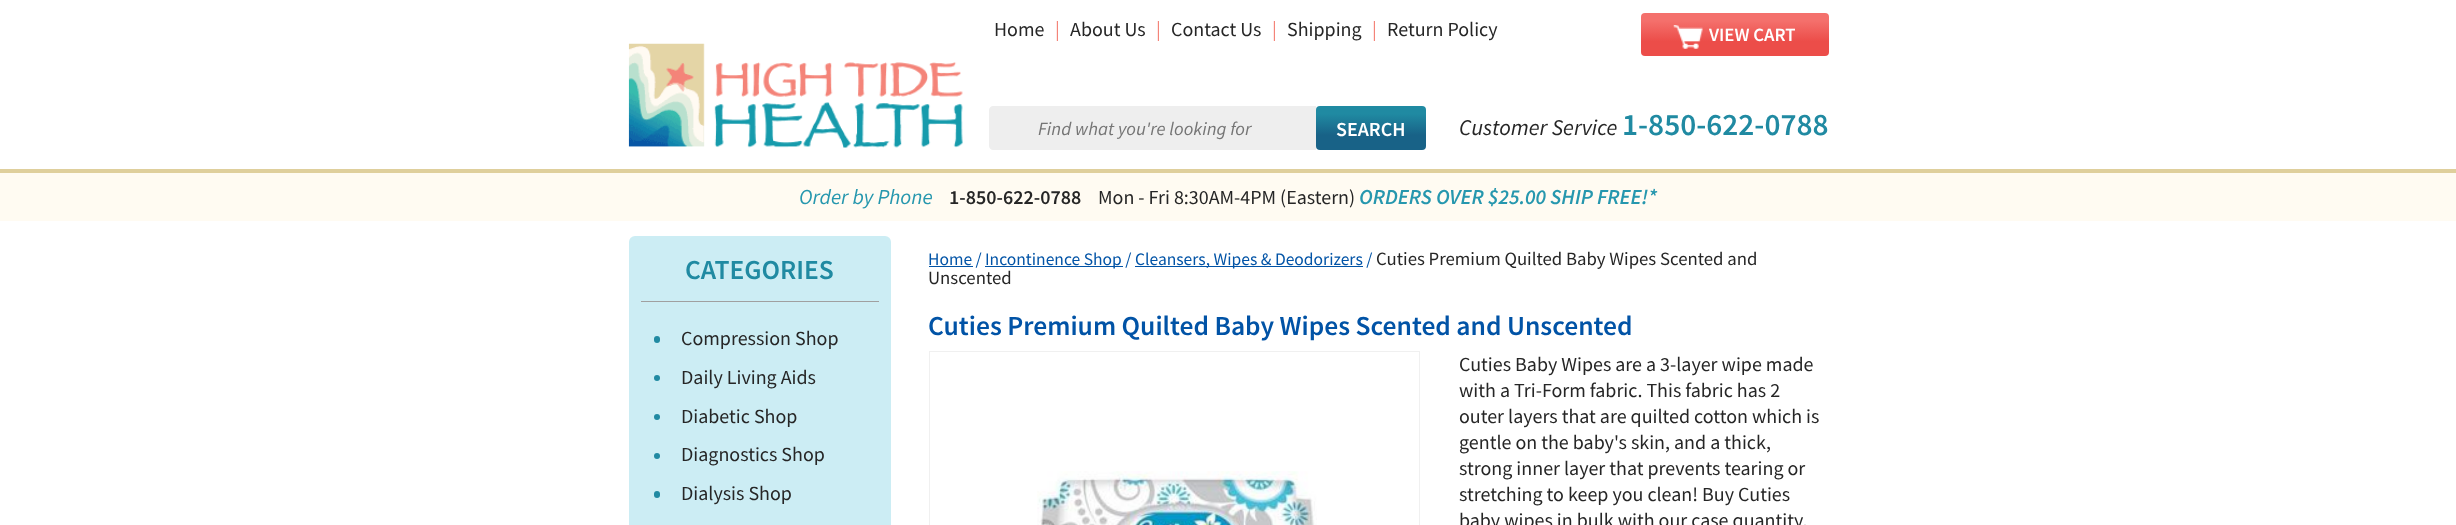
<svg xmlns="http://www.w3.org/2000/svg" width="2456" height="525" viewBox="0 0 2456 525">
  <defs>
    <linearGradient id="g1" gradientUnits="userSpaceOnUse" x1="1735" y1="56" x2="1735" y2="13"><stop offset="0.34" stop-color="rgb(236,77,73)"/><stop offset="0.82" stop-color="rgb(244,112,108)"/></linearGradient>
    <linearGradient id="g2" gradientUnits="userSpaceOnUse" x1="1371" y1="150" x2="1371" y2="106"><stop offset="0.34" stop-color="rgb(24,98,135)"/><stop offset="0.82" stop-color="rgb(32,138,162)"/></linearGradient>
  </defs>
  <rect width="100%" height="100%" fill="rgb(255,255,255)"/>
  <rect x="0" y="169" width="2456" height="4" fill="rgb(223,207,156)"/>
  <text x="994" y="36" font-family="Source Sans Pro" font-size="20" fill="rgb(38,38,38)">Home</text>
  <text x="1055" y="36" font-family="Source Sans Pro" font-size="20" fill="rgb(244,132,121)">|</text>
  <text x="1070" y="36" font-family="Source Sans Pro" font-size="20" fill="rgb(38,38,38)">About Us</text>
  <text x="1156" y="36" font-family="Source Sans Pro" font-size="20" fill="rgb(244,132,121)">|</text>
  <text x="1171" y="36" font-family="Source Sans Pro" font-size="20" fill="rgb(38,38,38)">Contact Us</text>
  <text x="1272" y="36" font-family="Source Sans Pro" font-size="20" fill="rgb(244,132,121)">|</text>
  <text x="1287" y="36" font-family="Source Sans Pro" font-size="20" fill="rgb(38,38,38)">Shipping</text>
  <text x="1372" y="36" font-family="Source Sans Pro" font-size="20" fill="rgb(244,132,121)">|</text>
  <text x="1387" y="36" font-family="Source Sans Pro" font-size="20" fill="rgb(38,38,38)">Return Policy</text>
  <rect x="1641" y="13" width="188" height="43" rx="4" fill="url(#g1)"/>
  <image x="1673" y="25" width="30" height="24" href="pic1.png"/>
  <text x="1709" y="41" font-family="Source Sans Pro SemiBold" font-size="18.75" font-weight="600" fill="rgb(255,255,255)">VIEW CART</text>
  <image x="628" y="43" width="335" height="105" href="pic2.png"/>
  <path d="M993 106H1316V150H993C991 150 989 148 989 146V110C989 108 991 106 993 106Z" fill="rgb(238,238,238)"/>
  <text x="1038" y="135" font-family="Source Sans Pro" font-size="18.75" font-style="italic" fill="rgb(117,117,117)">Find what you're looking for</text>
  <rect x="1316" y="106" width="110" height="44" rx="4" fill="url(#g2)"/>
  <text x="1336" y="136" font-family="Source Sans Pro SemiBold" font-size="20" font-weight="600" fill="rgb(255,255,255)">SEARCH</text>
  <text x="1459" y="135" font-family="Source Sans Pro" font-size="22.5" font-style="italic" fill="rgb(38,38,38)">Customer Service</text>
  <text x="1622" y="135" font-family="Source Sans Pro SemiBold" font-size="31.25" font-weight="600" fill="rgb(32,138,162)">1-850-622-0788</text>
  <rect x="0" y="173" width="2456" height="48" fill="rgb(255,251,242)"/>
  <text x="799" y="204" font-family="Source Sans Pro" font-size="21.25" font-style="italic" fill="rgb(38,151,174)">Order by Phone</text>
  <text x="949" y="204" font-family="Source Sans Pro SemiBold" font-size="20" font-weight="600" fill="rgb(38,38,38)">1-850-622-0788</text>
  <text x="1098" y="204" font-family="Source Sans Pro" font-size="20" fill="rgb(38,38,38)">Mon - Fri 8:30AM-4PM (Eastern)</text>
  <text x="1359" y="204" font-family="Source Sans Pro SemiBold" font-size="21.25" font-weight="600" font-style="italic" fill="rgb(38,151,174)">ORDERS OVER $25.00 SHIP FREE!*</text>
  <rect x="629" y="236" width="262" height="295" rx="6" fill="rgb(204,237,244)"/>
  <text x="685" y="279" font-family="Source Sans Pro SemiBold" font-size="27.5" font-weight="600" fill="rgb(32,138,162)">CATEGORIES</text>
  <rect x="641" y="301" width="238" height="1" fill="rgb(160,160,160)"/>
  <rect x="654" y="336" width="6" height="7" rx="3" fill="rgb(32,138,162)"/>
  <text x="681" y="345" font-family="Source Sans Pro" font-size="20" fill="rgb(38,38,38)">Compression Shop</text>
  <circle cx="657" cy="378" r="3" fill="rgb(32,138,162)"/>
  <text x="681" y="384" font-family="Source Sans Pro" font-size="20" fill="rgb(38,38,38)">Daily Living Aids</text>
  <circle cx="657" cy="417" r="3" fill="rgb(32,138,162)"/>
  <text x="681" y="423" font-family="Source Sans Pro" font-size="20" fill="rgb(38,38,38)">Diabetic Shop</text>
  <circle cx="657" cy="456" r="3" fill="rgb(32,138,162)"/>
  <text x="681" y="461" font-family="Source Sans Pro" font-size="20" fill="rgb(38,38,38)">Diagnostics Shop</text>
  <rect x="654" y="491" width="6" height="7" rx="3" fill="rgb(32,138,162)"/>
  <text x="681" y="500" font-family="Source Sans Pro" font-size="20" fill="rgb(38,38,38)">Dialysis Shop</text>
  <rect x="929" y="266" width="44" height="1" fill="rgb(1,83,166)"/>
  <text x="928" y="265" font-family="Source Sans Pro" font-size="17.5" fill="rgb(1,83,166)">Home /</text>
  <rect x="985" y="266" width="138" height="1" fill="rgb(1,83,166)"/>
  <text x="985" y="265" font-family="Source Sans Pro" font-size="17.5" fill="rgb(1,83,166)">Incontinence Shop /</text>
  <rect x="1135" y="266" width="228" height="1" fill="rgb(1,83,166)"/>
  <text x="1135" y="265" font-family="Source Sans Pro" font-size="17.5" fill="rgb(1,83,166)">Cleansers, Wipes &amp; Deodorizers /</text>
  <g font-family="Source Sans Pro" font-size="18.75" fill="rgb(38,38,38)">
    <text x="1376" y="265">Cuties Premium Quilted Baby Wipes Scented and</text>
    <text x="928" y="284">Unscented</text>
  </g>
  <text x="928" y="335" font-family="Source Sans Pro SemiBold" font-size="27.5" font-weight="600" fill="rgb(1,83,166)">Cuties Premium Quilted Baby Wipes Scented and Unscented</text>
  <rect x="929.5" y="351.5" width="490" height="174" fill="none" stroke="rgb(240,240,240)"/>
  <image x="1037" y="471" width="280" height="54" href="pic3.png"/>
  <g font-family="Source Sans Pro" font-size="20" fill="rgb(38,38,38)">
    <text>
      <tspan x="1459" y="371">Cuties Baby Wipes are a 3-layer wipe made</tspan>
      <tspan x="1459" y="397">with a Tri-Form fabric. This fabric has 2</tspan>
      <tspan x="1459" y="423">outer layers that are quilted cotton which is</tspan>
      <tspan x="1459" y="449">gentle on the baby's skin, and a thick,</tspan>
      <tspan x="1459" y="475">strong inner layer that prevents tearing or</tspan>
      <tspan x="1459" y="501">stretching to keep you clean! Buy Cuties</tspan>
      <tspan x="1459" y="527">baby wipes in bulk with our case quantity.</tspan>
    </text>
  </g>
</svg>
